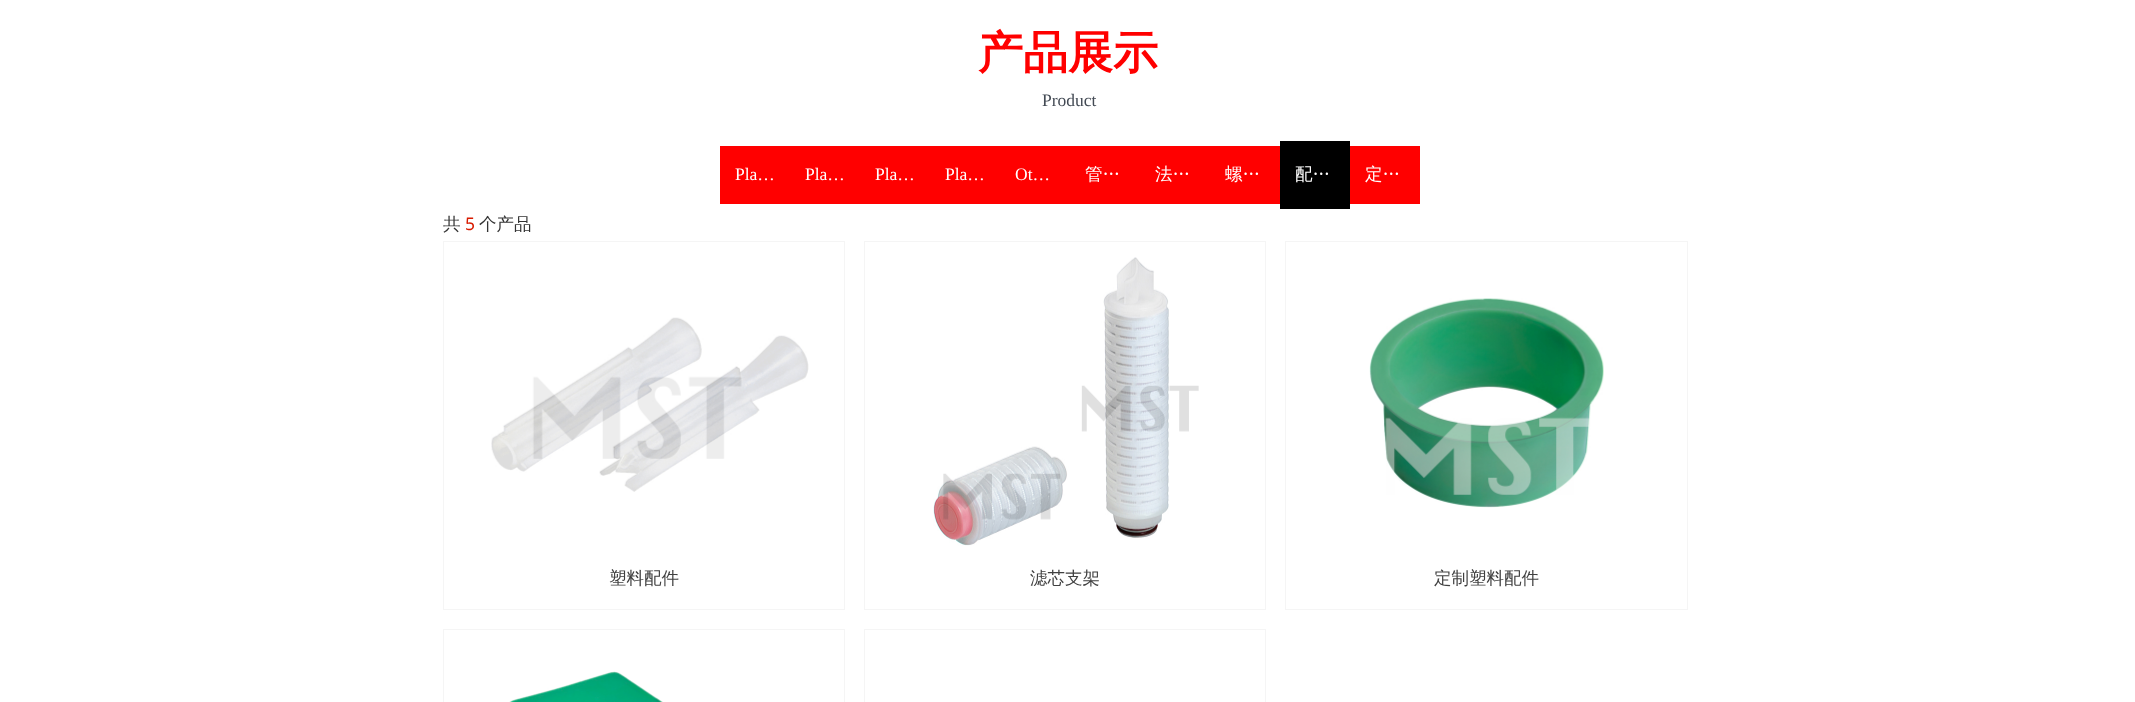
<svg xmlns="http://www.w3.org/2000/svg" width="2135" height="702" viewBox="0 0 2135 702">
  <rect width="100%" height="100%" fill="rgb(255,255,255)"/>
  <text x="978" y="68" font-family="WenQuanYi Zen Hei" font-size="45" font-weight="bold" fill="rgb(255,0,0)">产品展示</text>
  <text x="1042" y="106" font-family="Liberation Serif" font-size="17.5" fill="rgb(67,74,84)">Product</text>
  <rect x="720" y="146" width="560" height="58" fill="rgb(255,0,0)"/>
  <g font-family="Liberation Serif" font-size="17.5" fill="rgb(255,255,255)">
    <text x="735" y="180">Pla…</text>
    <text x="805" y="180">Pla…</text>
    <text x="875" y="180">Pla…</text>
    <text x="945" y="180">Pla…</text>
    <text x="1015" y="180">Ot…</text>
  </g>
  <g font-family="WenQuanYi Zen Hei" font-size="17.5" font-weight="500" fill="rgb(255,255,255)">
    <text x="1085" y="180">管…</text>
    <text x="1155" y="180" word-spacing="-1">法…</text>
    <text x="1225" y="180">螺…</text>
  </g>
  <rect x="1280" y="141" width="70" height="68" fill="rgb(0,0,0)"/>
  <text x="1295" y="180" font-family="WenQuanYi Zen Hei" font-size="17.5" font-weight="500" fill="rgb(255,255,255)">配…</text>
  <rect x="1350" y="146" width="70" height="58" fill="rgb(255,0,0)"/>
  <text x="1365" y="180" font-family="WenQuanYi Zen Hei" font-size="17.5" font-weight="500" fill="rgb(255,255,255)">定…</text>
  <text x="443" y="230" font-family="WenQuanYi Zen Hei" font-size="17.5" font-weight="500" fill="rgb(51,51,51)">共</text>
  <text x="465" y="230" font-family="Noto Sans" font-size="17.5" fill="rgb(216,27,0)">5</text>
  <text x="479" y="230" font-family="WenQuanYi Zen Hei" font-size="17.5" font-weight="500" fill="rgb(51,51,51)">个产品</text>
  <rect x="443.5" y="241.5" width="401" height="368" fill="none" stroke="rgb(245,245,245)"/>
  <image x="491" y="317" width="318" height="175" href="pic1.png"/>
  <text x="609" y="584" font-family="WenQuanYi Zen Hei" font-size="17.5" font-weight="500" fill="rgb(64,64,64)">塑料配件</text>
  <rect x="864.5" y="241.5" width="401" height="368" fill="none" stroke="rgb(245,245,245)"/>
  <image x="933" y="257" width="266" height="289" href="pic2.png"/>
  <text x="1030" y="584" font-family="WenQuanYi Zen Hei" font-size="17.5" font-weight="500" fill="rgb(64,64,64)">滤芯支架</text>
  <rect x="1285.5" y="241.5" width="402" height="368" fill="none" stroke="rgb(245,245,245)"/>
  <image x="1369" y="298" width="235" height="210" href="pic3.png"/>
  <text x="1434" y="584" font-family="WenQuanYi Zen Hei" font-size="17.5" font-weight="500" fill="rgb(64,64,64)">定制塑料配件</text>
  <rect x="443.5" y="629.5" width="401" height="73" fill="none" stroke="rgb(245,245,245)"/>
  <image x="509" y="671" width="154" height="31" href="pic4.png"/>
  <rect x="864.5" y="629.5" width="401" height="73" fill="none" stroke="rgb(245,245,245)"/>
</svg>
